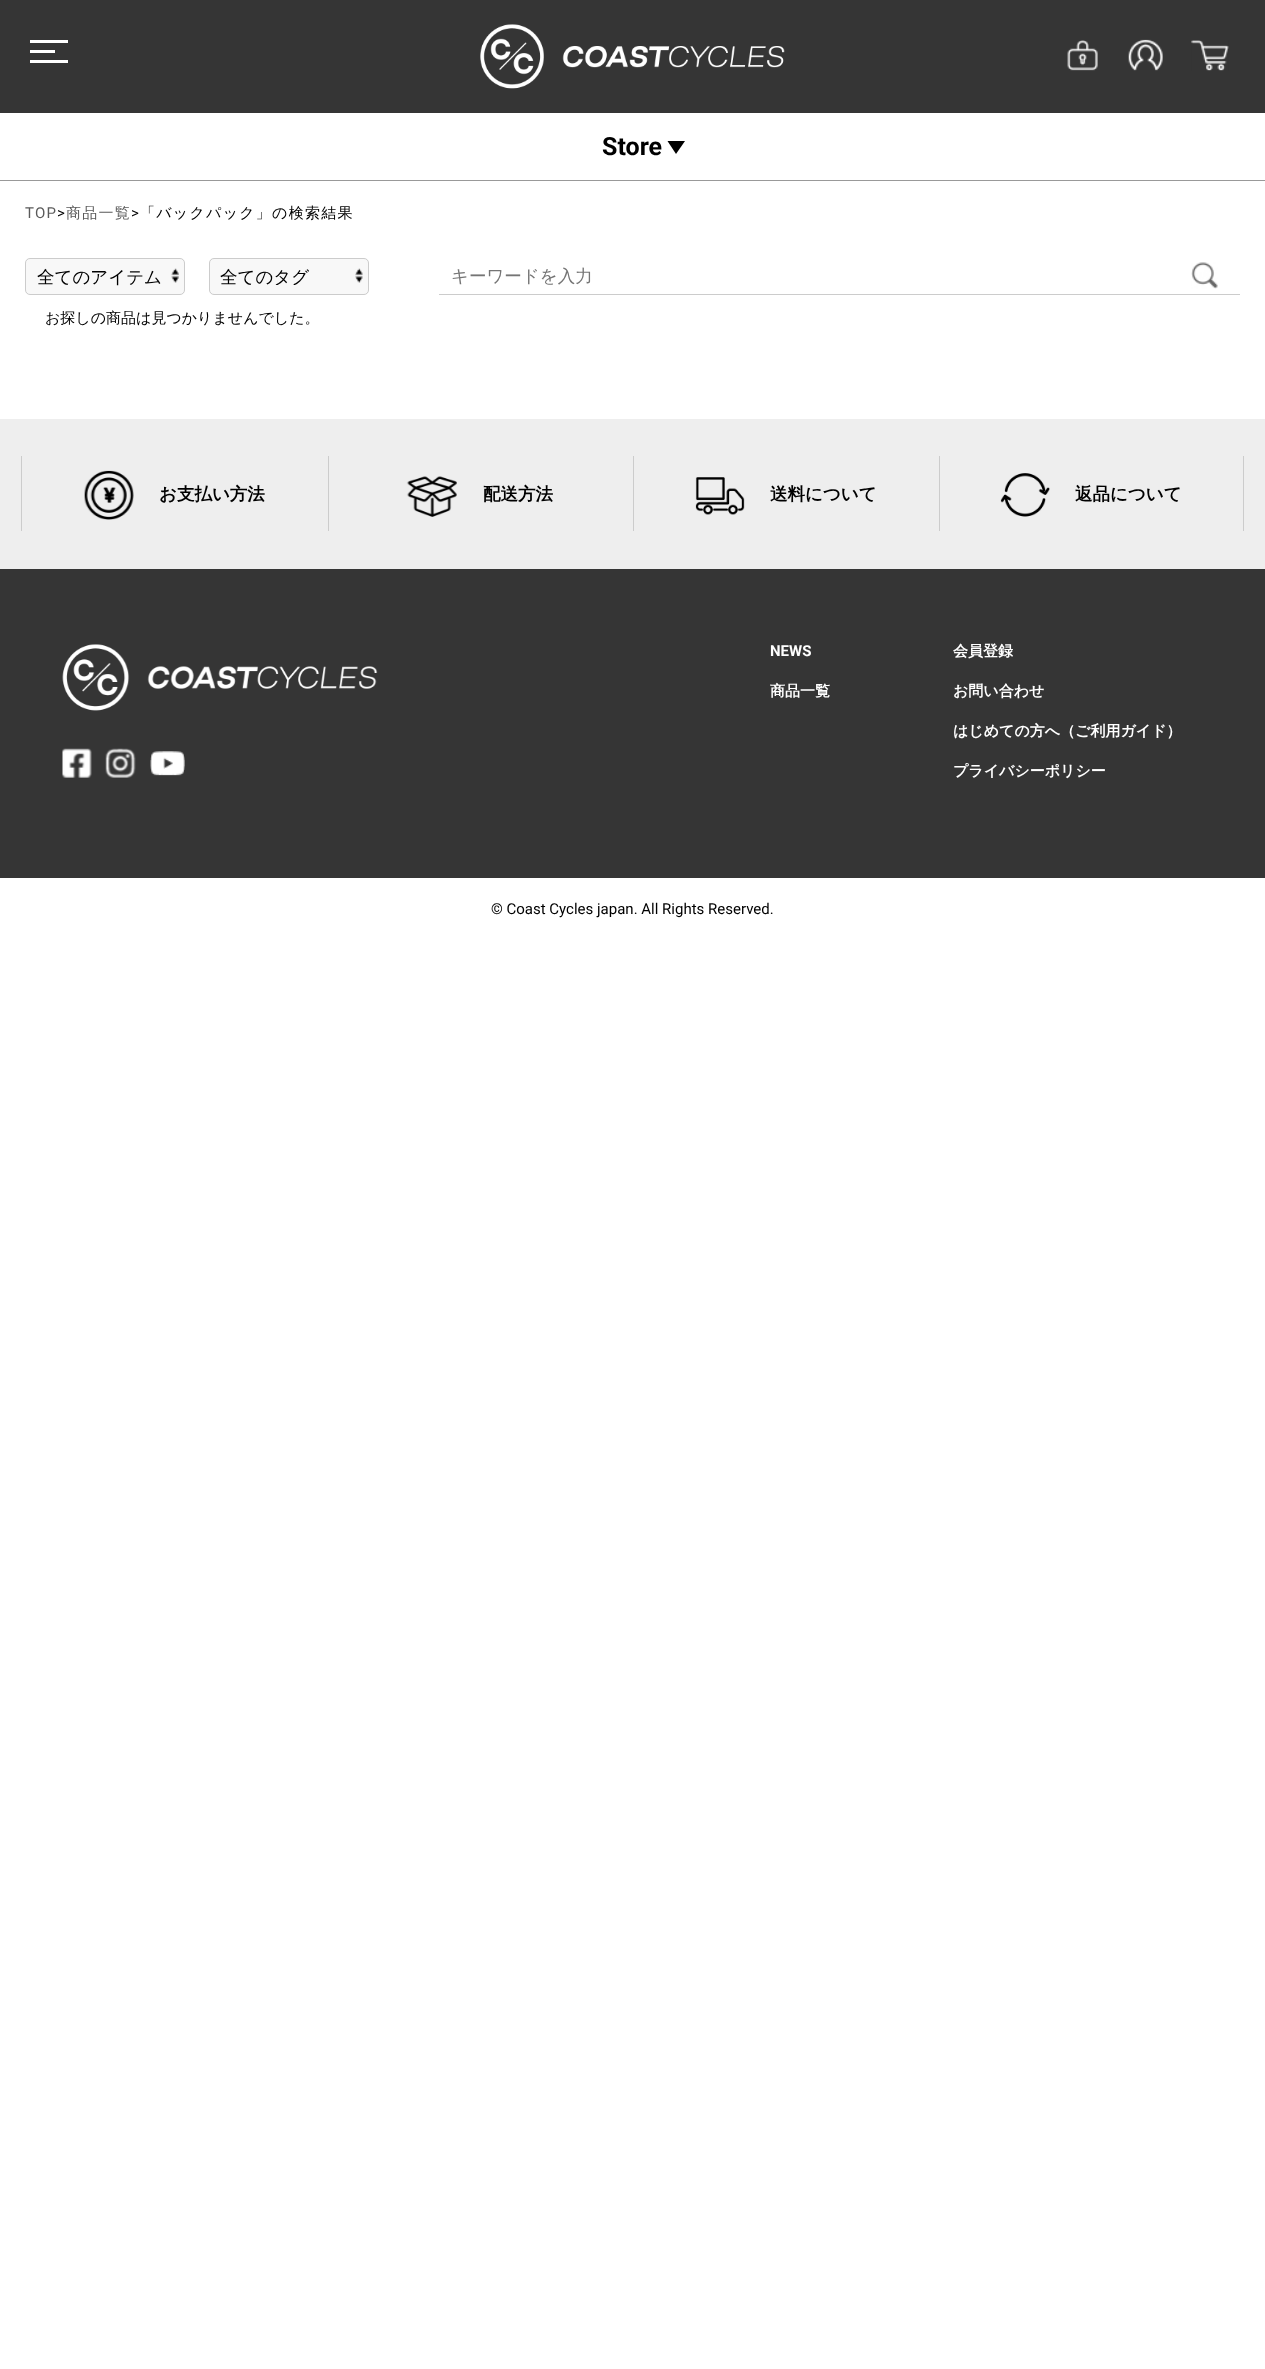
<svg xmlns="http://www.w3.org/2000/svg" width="1265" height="2369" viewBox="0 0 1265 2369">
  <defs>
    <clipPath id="clip1"><rect x="220" y="268" width="135" height="17"/></clipPath>
  </defs>
  <rect width="100%" height="100%" fill="rgb(255,255,255)"/>
  <rect x="0" y="0" width="1265" height="113" fill="rgb(53,53,53)"/>
  <rect x="30" y="40" width="38" height="3" fill="rgb(255,255,255)"/>
  <rect x="30" y="50" width="25" height="3" fill="rgb(255,255,255)"/>
  <rect x="30" y="60" width="38" height="3" fill="rgb(255,255,255)"/>
  <image x="480" y="24" width="305" height="65" href="pic1.png"/>
  <image x="1067" y="40" width="31" height="31" href="pic2.png"/>
  <image x="1128" y="39" width="35" height="32" href="pic3.png"/>
  <image x="1191" y="40" width="38" height="31" href="pic4.png"/>
  <rect x="0" y="180" width="1265" height="1" fill="rgb(153,153,153)"/>
  <text x="602" y="155" font-family="Roboto" font-size="25" font-weight="bold" fill="rgb(0,0,0)">Store</text>
  <path d="M667.5 141H685L676 154Z" fill="rgb(0,0,0)"/>
  <text x="25" y="218" font-family="Roboto" font-size="15" letter-spacing="1.25" fill="rgb(90,90,90)">TOP</text>
  <text x="57" y="218" font-family="Roboto" font-size="15" letter-spacing="1.25" fill="rgb(0,0,0)">&gt;</text>
  <text x="66" y="218" font-family="WenQuanYi Zen Hei" font-size="15" font-weight="500" letter-spacing="1.25" fill="rgb(90,90,90)">商品一覧</text>
  <text x="131" y="218" font-family="Roboto" font-size="15" letter-spacing="1.25" fill="rgb(0,0,0)">&gt;</text>
  <text x="140" y="218" font-family="WenQuanYi Zen Hei" font-size="15" font-weight="500" letter-spacing="1.25" fill="rgb(0,0,0)">「バックパック」の検索結果</text>
  <rect x="25" y="258" width="160" height="37" rx="5" fill="rgb(248,248,248)"/>
  <image x="171" y="268" width="8" height="15" href="pic5.png"/>
  <rect x="25.5" y="258.5" width="159" height="36" rx="4.5" fill="none" stroke="rgb(204,204,204)"/>
  <text x="37" y="283" font-family="WenQuanYi Zen Hei" font-size="17.5" font-weight="500" fill="rgb(0,0,0)">全てのアイテム</text>
  <rect x="209" y="258" width="160" height="37" rx="5" fill="rgb(248,248,248)"/>
  <image x="355" y="268" width="8" height="15" href="pic6.png"/>
  <rect x="209.5" y="258.5" width="159" height="36" rx="4.5" fill="none" stroke="rgb(204,204,204)"/>
  <g clip-path="url(#clip1)">
    <text x="220" y="283" font-family="WenQuanYi Zen Hei" font-size="17.5" font-weight="500" fill="rgb(0,0,0)">全てのタグ</text>
  </g>
  <rect x="439" y="294" width="801" height="1" fill="rgb(204,204,204)"/>
  <text x="451" y="282" font-family="WenQuanYi Zen Hei" font-size="17.5" font-weight="500" fill="rgb(117,117,117)">キーワードを入力</text>
  <image x="1191" y="262" width="27" height="27" href="pic7.png"/>
  <text x="45" y="323" font-family="WenQuanYi Zen Hei" font-size="15" font-weight="500" fill="rgb(0,0,0)">お探しの商品は見つかりませんでした。</text>
  <rect x="0" y="419" width="1265" height="150" fill="rgb(238,238,238)"/>
  <rect x="21" y="456" width="1" height="75" fill="rgb(204,204,204)"/>
  <image x="84" y="470" width="50" height="50" href="pic8.png"/>
  <text x="159" y="500" font-family="WenQuanYi Zen Hei" font-size="17.5" font-weight="bold" fill="rgb(0,0,0)">お支払い方法</text>
  <rect x="328" y="456" width="1" height="75" fill="rgb(204,204,204)"/>
  <image x="406" y="476" width="51" height="41" href="pic9.png"/>
  <text x="483" y="500" font-family="WenQuanYi Zen Hei" font-size="17.5" font-weight="bold" fill="rgb(0,0,0)">配送方法</text>
  <rect x="633" y="456" width="1" height="75" fill="rgb(204,204,204)"/>
  <image x="695" y="477" width="50" height="38" href="pic10.png"/>
  <text x="770" y="500" font-family="WenQuanYi Zen Hei" font-size="17.5" font-weight="bold" fill="rgb(0,0,0)">送料について</text>
  <rect x="1243" y="456" width="1" height="75" fill="rgb(204,204,204)"/>
  <rect x="939" y="456" width="1" height="75" fill="rgb(204,204,204)"/>
  <image x="1000" y="473" width="50" height="44" href="pic11.png"/>
  <text x="1075" y="500" font-family="WenQuanYi Zen Hei" font-size="17.5" font-weight="bold" fill="rgb(0,0,0)">返品について</text>
  <rect x="0" y="569" width="1265" height="309" fill="rgb(53,53,53)"/>
  <image x="62" y="644" width="316" height="67" href="pic12.png"/>
  <image x="62" y="748" width="30" height="30" href="pic13.png"/>
  <image x="105" y="748" width="31" height="30" href="pic14.png"/>
  <image x="150" y="751" width="35" height="25" href="pic15.png"/>
  <text x="770" y="656" font-family="Roboto" font-size="15" font-weight="bold" fill="rgb(255,255,255)">NEWS</text>
  <g font-family="WenQuanYi Zen Hei" font-size="15" font-weight="bold" fill="rgb(255,255,255)">
    <text x="770" y="696">商品一覧</text>
    <text x="953" y="656">会員登録</text>
    <text x="953" y="696">お問い合わせ</text>
    <text x="953" y="736">はじめての方へ（ご利用ガイド）</text>
    <text x="953" y="776">プライバシーポリシー</text>
  </g>
  <text x="491" y="914" font-family="Roboto" font-size="15" fill="rgb(0,0,0)">© Coast Cycles japan. All Rights Reserved.</text>
</svg>
